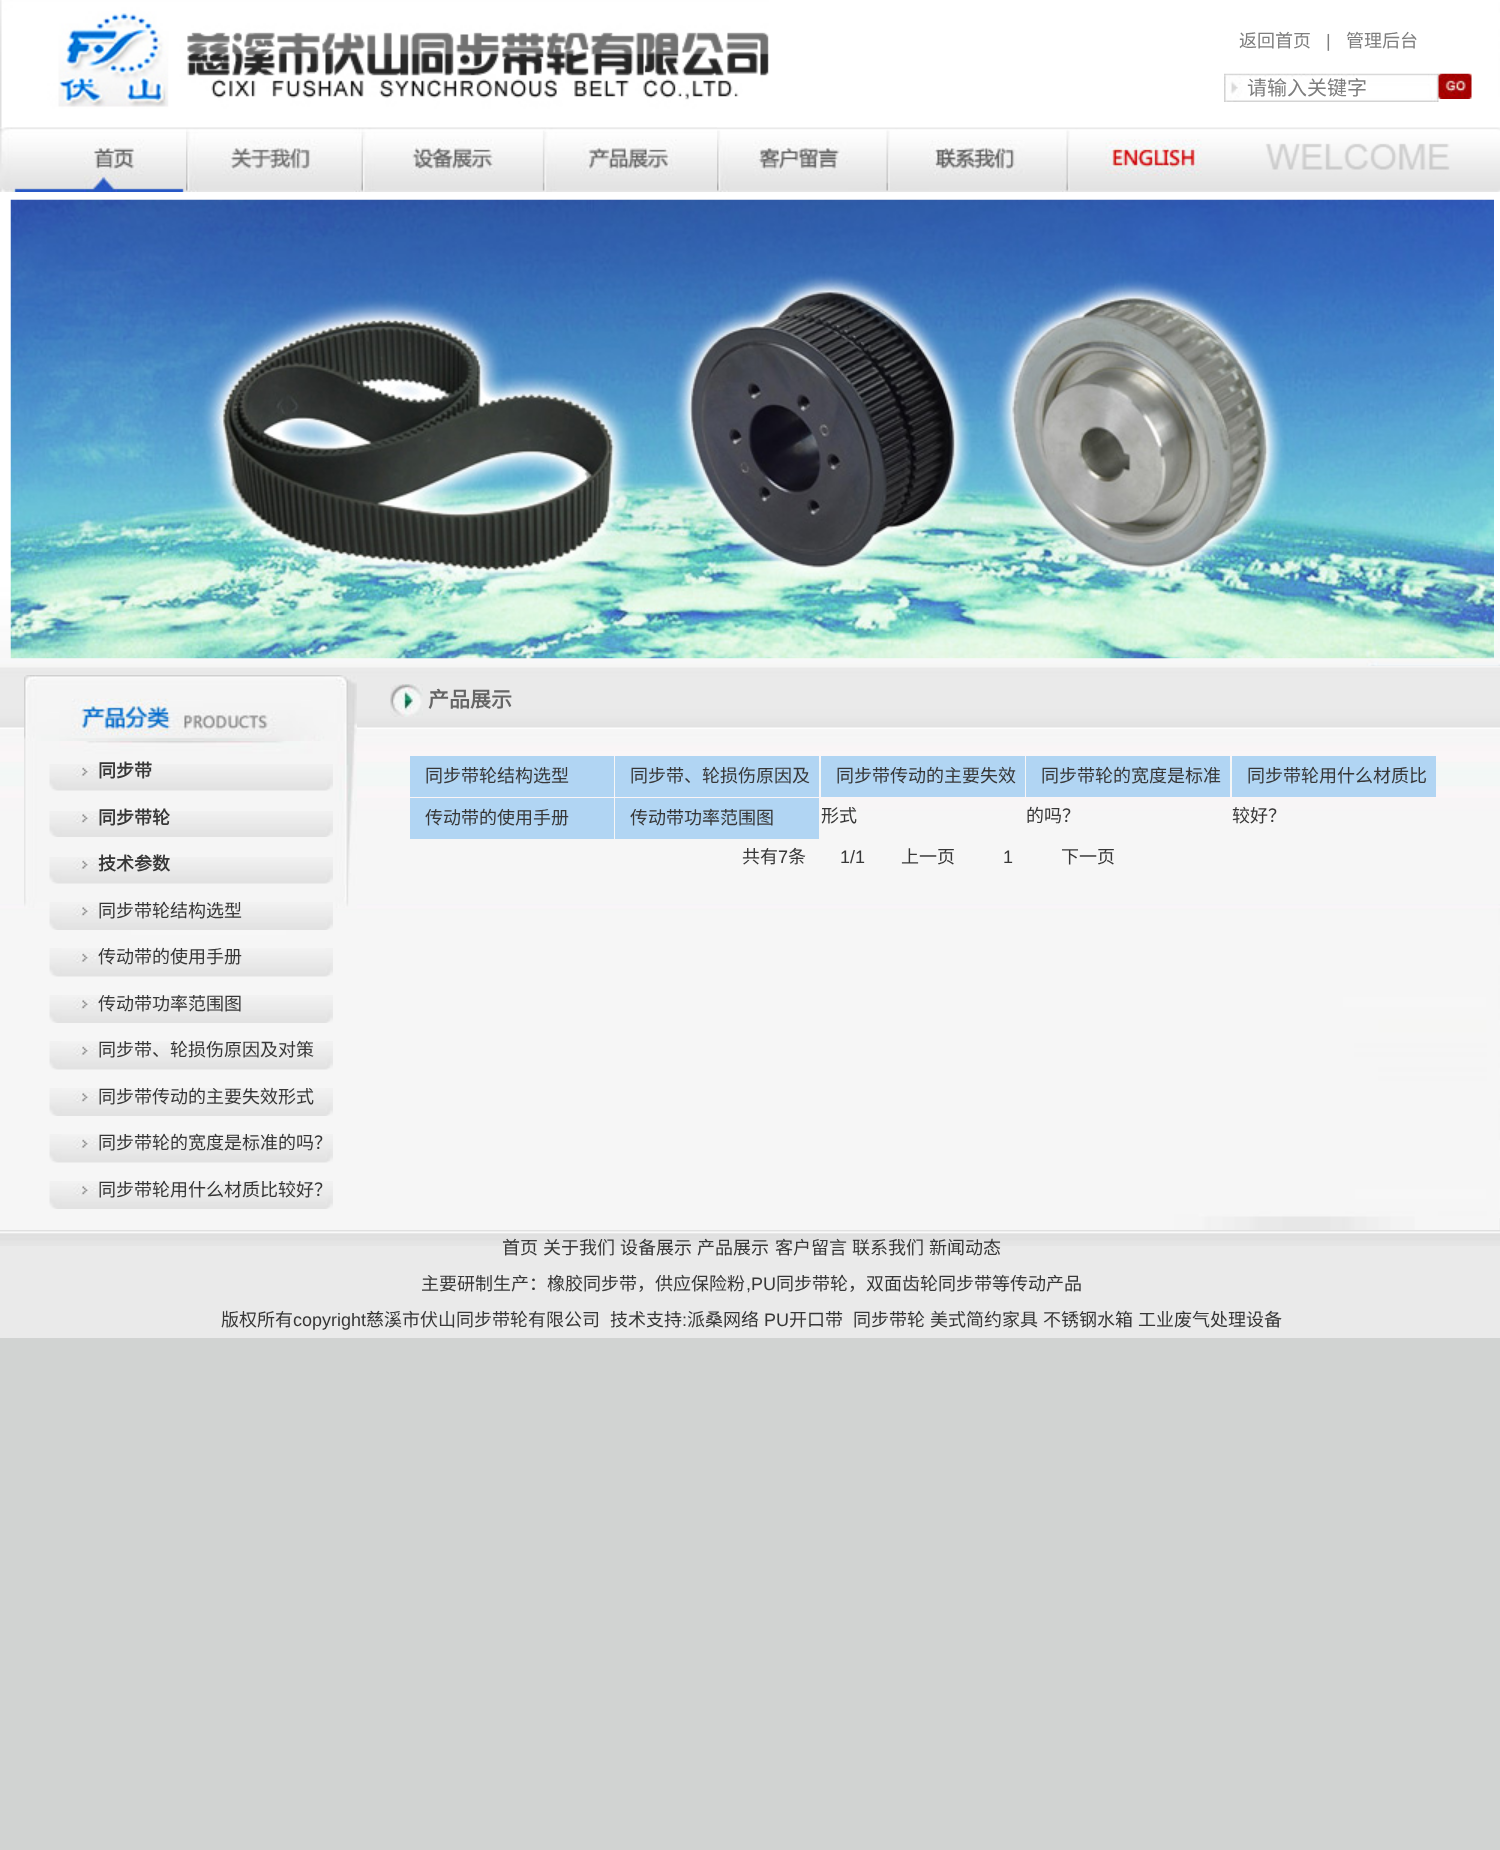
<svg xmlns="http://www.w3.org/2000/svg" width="1500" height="1850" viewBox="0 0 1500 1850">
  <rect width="100%" height="100%" fill="rgb(209,211,210)"/>
  <image x="0" y="1218" width="1500" height="12" href="pic1.png"/>
  <image x="0" y="0" width="1500" height="1218" href="pic2.png"/>
  <image x="0" y="0" width="769" height="128" href="pic3.png"/>
  <text x="1239" y="47" font-family="Noto Sans CJK SC" font-size="18" fill="rgb(126,126,126)">返回首页</text>
  <text x="1326" y="47" font-family="Liberation Sans" font-size="18" fill="rgb(126,126,126)">|</text>
  <text x="1346" y="47" font-family="Noto Sans CJK SC" font-size="18" fill="rgb(126,126,126)">管理后台</text>
  <image x="1224" y="73" width="215" height="29" href="pic4.png"/>
  <text x="1247" y="95" font-family="Noto Sans CJK SC" font-size="20" fill="rgb(126,126,126)">请输入关键字</text>
  <image x="1438" y="73" width="34" height="26" href="pic5.png"/>
  <image x="0" y="127" width="1500" height="65" href="pic6.png"/>
  <image x="0" y="127" width="186" height="65" href="pic7.png"/>
  <image x="186" y="127" width="177" height="65" href="pic8.png"/>
  <image x="363" y="127" width="182" height="65" href="pic9.png"/>
  <image x="544" y="127" width="173" height="65" href="pic10.png"/>
  <image x="717" y="140" width="131" height="52" href="pic11.png"/>
  <image x="929" y="140" width="140" height="52" href="pic12.png"/>
  <image x="1069" y="139" width="133" height="49" href="pic13.png"/>
  <image x="10" y="199" width="1484" height="460" href="pic14.png"/>
  <image x="0" y="666" width="1500" height="238" href="pic15.png"/>
  <image x="24" y="675" width="333" height="66" href="pic16.png"/>
  <image x="24" y="741" width="333" height="167" href="pic17.png"/>
  <image x="49" y="764" width="284" height="27" href="pic18.png"/>
  <text x="98" y="777" font-family="Noto Sans CJK SC" font-size="18" font-weight="bold" fill="rgb(55,55,55)">同步带</text>
  <image x="49" y="811" width="284" height="26" href="pic19.png"/>
  <text x="98" y="824" font-family="Noto Sans CJK SC" font-size="18" font-weight="bold" fill="rgb(55,55,55)">同步带轮</text>
  <image x="49" y="857" width="284" height="27" href="pic18.png"/>
  <text x="98" y="870" font-family="Noto Sans CJK SC" font-size="18" font-weight="bold" fill="rgb(55,55,55)">技术参数</text>
  <image x="49" y="902" width="284" height="28" href="pic20.png"/>
  <text x="98" y="917" font-family="Noto Sans CJK SC" font-size="18" fill="rgb(55,55,55)">同步带轮结构选型</text>
  <image x="49" y="948" width="284" height="29" href="pic21.png"/>
  <text x="98" y="963" font-family="Noto Sans CJK SC" font-size="18" fill="rgb(55,55,55)">传动带的使用手册</text>
  <image x="49" y="995" width="284" height="28" href="pic22.png"/>
  <text x="98" y="1010" font-family="Noto Sans CJK SC" font-size="18" fill="rgb(55,55,55)">传动带功率范围图</text>
  <image x="49" y="1041" width="284" height="29" href="pic21.png"/>
  <text x="98" y="1056" font-family="Noto Sans CJK SC" font-size="18" fill="rgb(55,55,55)">同步带、轮损伤原因及对策</text>
  <image x="49" y="1088" width="284" height="28" href="pic22.png"/>
  <text x="98" y="1103" font-family="Noto Sans CJK SC" font-size="18" fill="rgb(55,55,55)">同步带传动的主要失效形式</text>
  <image x="49" y="1134" width="284" height="29" href="pic21.png"/>
  <text x="98" y="1149" font-family="Noto Sans CJK SC" font-size="18" fill="rgb(55,55,55)">同步带轮的宽度是标准的吗？</text>
  <image x="49" y="1181" width="284" height="28" href="pic22.png"/>
  <text x="98" y="1196" font-family="Noto Sans CJK SC" font-size="18" fill="rgb(55,55,55)">同步带轮用什么材质比较好？</text>
  <image x="390" y="684" width="33" height="33" href="pic23.png"/>
  <text x="428" y="707" font-family="Noto Sans CJK SC" font-size="21" font-weight="bold" fill="rgb(101,101,101)">产品展示</text>
  <rect x="410" y="756" width="204" height="41" fill="rgb(177,213,243)"/>
  <text x="425" y="782" font-family="Noto Sans CJK SC" font-size="18" fill="rgb(55,55,55)">同步带轮结构选型</text>
  <rect x="615" y="756" width="204" height="41" fill="rgb(177,213,243)"/>
  <text x="630" y="782" font-family="Noto Sans CJK SC" font-size="18" fill="rgb(55,55,55)">同步带、轮损伤原因及</text>
  <rect x="821" y="756" width="204" height="41" fill="rgb(177,213,243)"/>
  <g font-family="Noto Sans CJK SC" font-size="18" fill="rgb(55,55,55)">
    <text x="836" y="782">同步带传动的主要失效</text>
    <text x="821" y="822">形式</text>
  </g>
  <rect x="1026" y="756" width="204" height="41" fill="rgb(177,213,243)"/>
  <g font-family="Noto Sans CJK SC" font-size="18" fill="rgb(55,55,55)">
    <text x="1041" y="782">同步带轮的宽度是标准</text>
    <text x="1026" y="822">的吗？</text>
  </g>
  <rect x="1232" y="756" width="204" height="41" fill="rgb(177,213,243)"/>
  <g font-family="Noto Sans CJK SC" font-size="18" fill="rgb(55,55,55)">
    <text x="1247" y="782">同步带轮用什么材质比</text>
    <text x="1232" y="822">较好？</text>
  </g>
  <rect x="410" y="798" width="204" height="41" fill="rgb(177,213,243)"/>
  <text x="425" y="824" font-family="Noto Sans CJK SC" font-size="18" fill="rgb(55,55,55)">传动带的使用手册</text>
  <rect x="615" y="798" width="204" height="41" fill="rgb(177,213,243)"/>
  <g font-family="Noto Sans CJK SC" font-size="18" fill="rgb(55,55,55)">
    <text x="630" y="824">传动带功率范围图</text>
    <text x="742" y="863">共有</text>
  </g>
  <text x="778" y="863" font-family="Liberation Sans" font-size="18" fill="rgb(55,55,55)">7</text>
  <text x="788" y="863" font-family="Noto Sans CJK SC" font-size="18" fill="rgb(55,55,55)">条</text>
  <text x="840" y="863" font-family="Liberation Sans" font-size="18" fill="rgb(55,55,55)">1/1</text>
  <text x="901" y="863" font-family="Noto Sans CJK SC" font-size="18" fill="rgb(55,55,55)">上一页</text>
  <text x="1003" y="863" font-family="Liberation Sans" font-size="18" fill="rgb(55,55,55)">1</text>
  <text x="1061" y="863" font-family="Noto Sans CJK SC" font-size="18" fill="rgb(55,55,55)">下一页</text>
  <rect x="0" y="1246" width="1500" height="92" fill="rgb(234,234,234)"/>
  <image x="0" y="1230" width="1500" height="16" href="pic24.png"/>
  <g font-family="Noto Sans CJK SC" font-size="18" fill="rgb(55,55,55)">
    <text x="502" y="1254">首页</text>
    <text x="543" y="1254">关于我们</text>
    <text x="620" y="1254">设备展示</text>
    <text x="697" y="1254">产品展示</text>
    <text x="775" y="1254">客户留言</text>
    <text x="852" y="1254">联系我们</text>
    <text x="929" y="1254">新闻动态</text>
    <text x="421" y="1290">主要研制生产：橡胶同步带，供应保险粉</text>
  </g>
  <text x="746" y="1290" font-family="Liberation Sans" font-size="18" fill="rgb(55,55,55)">,PU</text>
  <g font-family="Noto Sans CJK SC" font-size="18" fill="rgb(55,55,55)">
    <text x="776" y="1290">同步带轮，双面齿轮同步带等传动产品</text>
    <text x="221" y="1326">版权所有</text>
  </g>
  <text x="293" y="1326" font-family="Liberation Sans" font-size="18" fill="rgb(55,55,55)">copyright</text>
  <g font-family="Noto Sans CJK SC" font-size="18" fill="rgb(55,55,55)">
    <text x="366" y="1326">慈溪市伏山同步带轮有限公司</text>
    <text x="610" y="1326">技术支持</text>
  </g>
  <text x="682" y="1326" font-family="Liberation Sans" font-size="18" fill="rgb(55,55,55)">:</text>
  <text x="687" y="1326" font-family="Noto Sans CJK SC" font-size="18" fill="rgb(55,55,55)">派桑网络</text>
  <text x="764" y="1326" font-family="Liberation Sans" font-size="18" fill="rgb(55,55,55)">PU</text>
  <g font-family="Noto Sans CJK SC" font-size="18" fill="rgb(55,55,55)">
    <text x="789" y="1326">开口带</text>
    <text x="853" y="1326">同步带轮</text>
    <text x="930" y="1326">美式简约家具</text>
    <text x="1043" y="1326">不锈钢水箱</text>
    <text x="1138" y="1326">工业废气处理设备</text>
  </g>
</svg>
